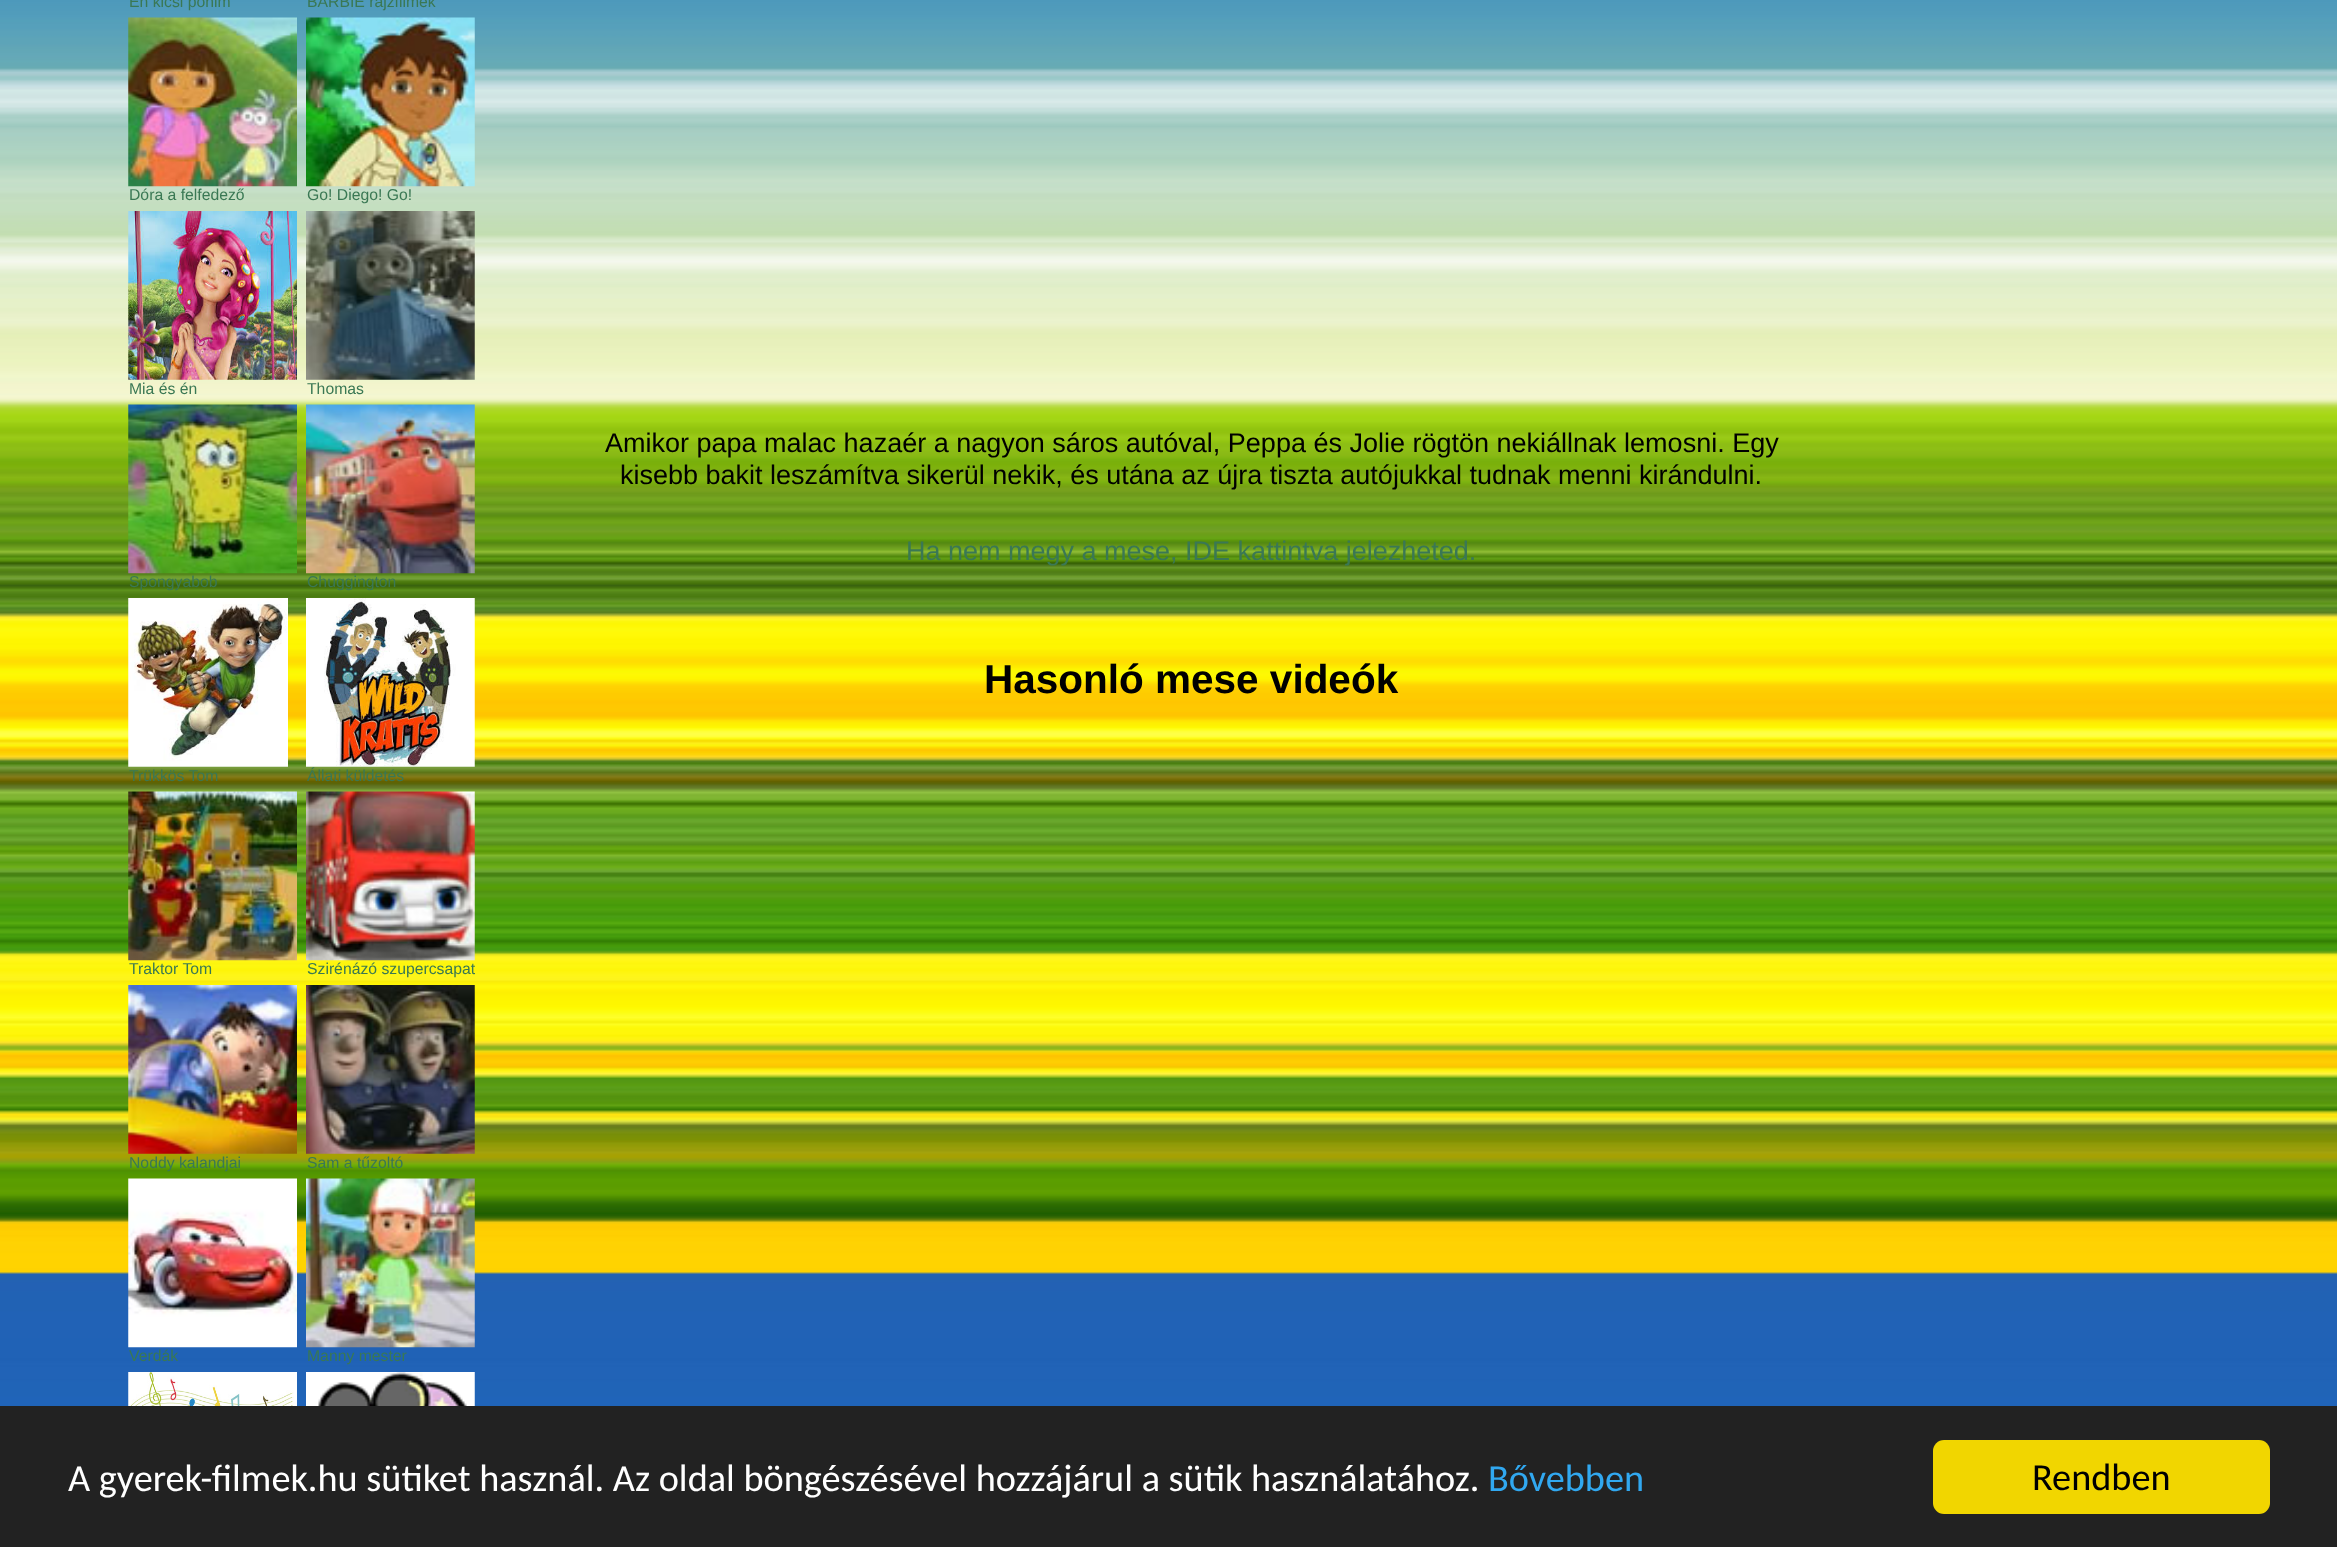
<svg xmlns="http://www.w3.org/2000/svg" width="2337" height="1547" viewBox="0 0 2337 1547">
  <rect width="100%" height="100%" fill="rgb(255,255,255)"/>
  <image x="0" y="0" width="2337" height="1406" href="pic1.png"/>
  <g font-family="Liberation Sans" font-size="15.75" fill="rgb(58,120,84)">
    <text x="129" y="7">Én kicsi pónim</text>
    <text x="307" y="7">BARBIE rajzfilmek</text>
  </g>
  <image x="128" y="17" width="169" height="170" href="pic2.png"/>
  <text x="129" y="200" font-family="Liberation Sans" font-size="15.75" fill="rgb(58,120,84)">Dóra a felfedező</text>
  <image x="306" y="17" width="169" height="170" href="pic3.png"/>
  <text x="307" y="200" font-family="Liberation Sans" font-size="15.75" fill="rgb(58,120,84)">Go! Diego! Go!</text>
  <image x="128" y="211" width="169" height="169" href="pic4.png"/>
  <text x="129" y="394" font-family="Liberation Sans" font-size="15.75" fill="rgb(58,120,84)">Mia és én</text>
  <image x="306" y="211" width="169" height="169" href="pic5.png"/>
  <text x="307" y="394" font-family="Liberation Sans" font-size="15.75" fill="rgb(58,120,84)">Thomas</text>
  <image x="128" y="404" width="169" height="170" href="pic6.png"/>
  <text x="129" y="587" font-family="Liberation Sans" font-size="15.75" fill="rgb(58,120,84)">Spongyabob</text>
  <image x="306" y="404" width="169" height="170" href="pic7.png"/>
  <text x="307" y="587" font-family="Liberation Sans" font-size="15.75" fill="rgb(58,120,84)">Chuggington</text>
  <image x="128" y="598" width="160" height="169" href="pic8.png"/>
  <text x="129" y="781" font-family="Liberation Sans" font-size="15.75" fill="rgb(58,120,84)">Trükkös Tom</text>
  <image x="306" y="598" width="169" height="169" href="pic9.png"/>
  <text x="307" y="781" font-family="Liberation Sans" font-size="15.75" fill="rgb(58,120,84)">Állati küldetés</text>
  <image x="128" y="791" width="169" height="170" href="pic10.png"/>
  <text x="129" y="974" font-family="Liberation Sans" font-size="15.75" fill="rgb(58,120,84)">Traktor Tom</text>
  <image x="306" y="791" width="169" height="170" href="pic11.png"/>
  <text x="307" y="974" font-family="Liberation Sans" font-size="15.75" fill="rgb(58,120,84)">Szirénázó szupercsapat</text>
  <image x="128" y="985" width="169" height="169" href="pic12.png"/>
  <text x="129" y="1168" font-family="Liberation Sans" font-size="15.75" fill="rgb(58,120,84)">Noddy kalandjai</text>
  <image x="306" y="985" width="169" height="169" href="pic13.png"/>
  <text x="307" y="1168" font-family="Liberation Sans" font-size="15.75" fill="rgb(58,120,84)">Sam a tűzoltó</text>
  <image x="128" y="1178" width="169" height="170" href="pic14.png"/>
  <text x="129" y="1361" font-family="Liberation Sans" font-size="15.75" fill="rgb(58,120,84)">Verdák</text>
  <image x="306" y="1178" width="169" height="170" href="pic15.png"/>
  <text x="307" y="1361" font-family="Liberation Sans" font-size="15.75" fill="rgb(58,120,84)">Manny mester</text>
  <image x="128" y="1372" width="169" height="34" href="pic16.png"/>
  <image x="306" y="1372" width="169" height="34" href="pic17.png"/>
  <g font-family="Liberation Sans" font-size="27" fill="rgb(0,0,0)">
    <text x="605" y="452">Amikor papa malac hazaér a nagyon sáros autóval, Peppa és Jolie rögtön nekiállnak lemosni. Egy</text>
    <text x="620" y="484">kisebb bakit leszámítva sikerül nekik, és utána az újra tiszta autójukkal tudnak menni kirándulni.</text>
  </g>
  <text x="906" y="560" font-family="Liberation Sans" font-size="27" fill="rgb(58,120,84)">Ha nem megy a mese, IDE kattintva jelezheted.</text>
  <text x="984" y="693" font-family="Liberation Sans" font-size="40.5" font-weight="bold" fill="rgb(0,0,0)">Hasonló mese videók</text>
  <rect x="0" y="1406" width="2337" height="141" fill="rgb(34,34,34)"/>
  <text x="68" y="1491" font-family="Carlito" font-size="38.25" fill="rgb(255,255,255)">A gyerek-filmek.hu sütiket használ. Az oldal böngészésével hozzájárul a sütik használatához.</text>
  <text x="1488" y="1491" font-family="Carlito" font-size="38.25" fill="rgb(49,168,240)">Bővebben</text>
  <rect x="1933" y="1440" width="337" height="74" rx="11" fill="rgb(241,214,0)"/>
  <text x="2032" y="1490" font-family="Carlito" font-size="38.25" fill="rgb(0,0,0)">Rendben</text>
</svg>
